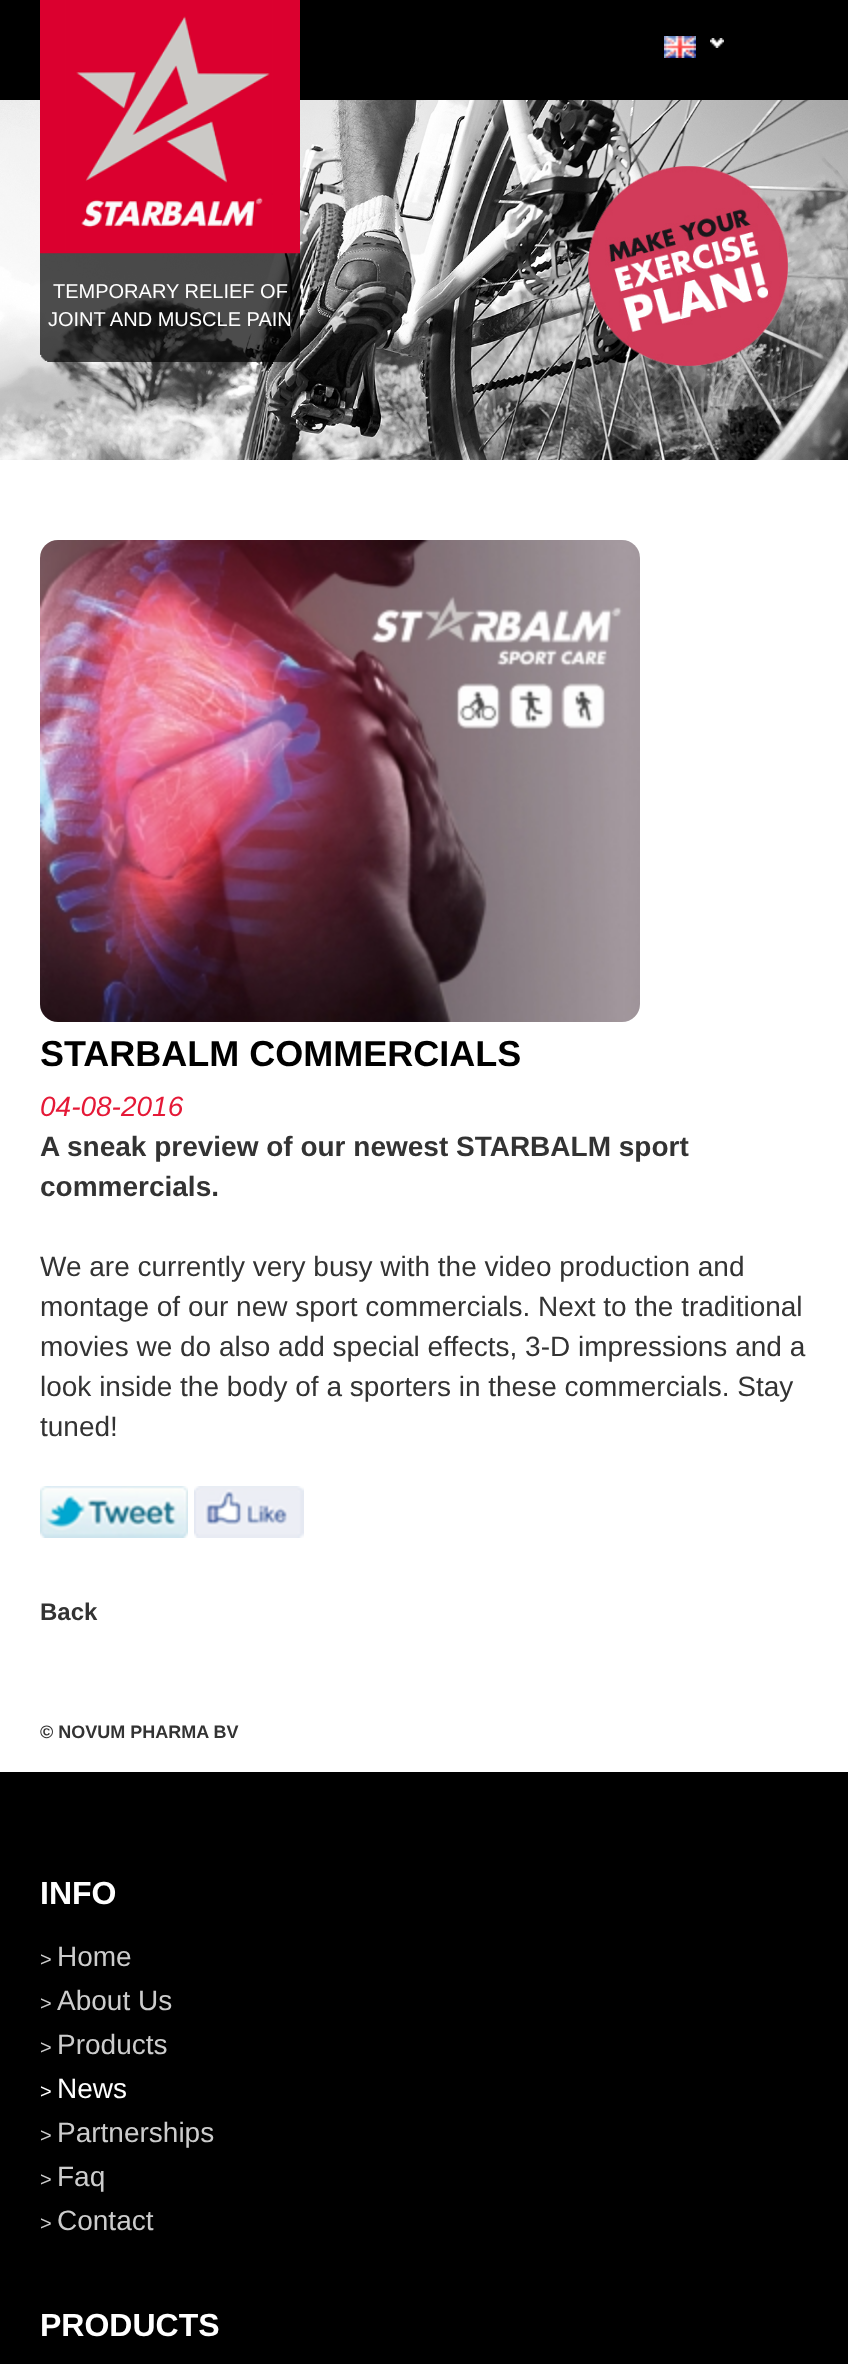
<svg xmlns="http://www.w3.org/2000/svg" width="848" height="2364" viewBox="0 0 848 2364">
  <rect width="100%" height="100%" fill="rgb(255,255,255)"/>
  <rect x="0" y="0" width="848" height="100" fill="rgb(0,0,0)"/>
  <image x="0" y="100" width="848" height="360" href="pic1.png"/>
  <image x="710" y="38" width="14" height="10" href="pic2.png"/>
  <image x="664" y="36" width="32" height="22" href="pic3.png"/>
  <image x="40" y="0" width="260" height="362" href="pic4.png"/>
  <image x="588" y="166" width="200" height="200" href="pic5.png"/>
  <g font-family="Liberation Sans" font-size="20" fill="rgb(255,255,255)">
    <text x="53" y="298">TEMPORARY RELIEF OF</text>
    <text x="48" y="326">JOINT AND MUSCLE PAIN</text>
  </g>
  <image x="40" y="540" width="600" height="482" href="pic6.png"/>
  <text x="40" y="1066" font-family="Liberation Sans" font-size="36" font-weight="bold" fill="rgb(0,0,0)">STARBALM COMMERCIALS</text>
  <text x="40" y="1116" font-family="Liberation Sans" font-size="28" font-style="italic" fill="rgb(229,25,55)">04-08-2016</text>
  <g font-family="Liberation Sans" font-size="28" font-weight="bold" fill="rgb(51,51,51)">
    <text>
      <tspan x="40" y="1156">A sneak preview of our newest STARBALM sport</tspan>
      <tspan x="40" y="1196">commercials.</tspan>
    </text>
  </g>
  <g font-family="Liberation Sans" font-size="28" fill="rgb(51,51,51)">
    <text>
      <tspan x="40" y="1276">We are currently very busy with the video production and</tspan>
      <tspan x="40" y="1316">montage of our new sport commercials. Next to the traditional</tspan>
      <tspan x="40" y="1356">movies we do also add special effects, 3-D impressions and a</tspan>
      <tspan x="40" y="1396">look inside the body of a sporters in these commercials. Stay</tspan>
      <tspan x="40" y="1436">tuned!</tspan>
    </text>
  </g>
  <image x="40" y="1486" width="148" height="52" href="pic7.png"/>
  <image x="194" y="1486" width="110" height="52" href="pic8.png"/>
  <text x="40" y="1620" font-family="Liberation Sans" font-size="24" font-weight="bold" fill="rgb(51,51,51)">Back</text>
  <text x="40" y="1738" font-family="Liberation Sans" font-size="18" font-weight="bold" fill="rgb(51,51,51)">© NOVUM PHARMA BV</text>
  <rect x="0" y="1772" width="848" height="592" fill="rgb(0,0,0)"/>
  <text x="40" y="1904" font-family="Liberation Sans" font-size="32" font-weight="bold" fill="rgb(255,255,255)">INFO</text>
  <text x="40" y="1966" font-family="Liberation Sans" font-size="20" fill="rgb(204,204,204)">&gt;</text>
  <text x="57" y="1966" font-family="Liberation Sans" font-size="28" fill="rgb(204,204,204)">Home</text>
  <text x="40" y="2010" font-family="Liberation Sans" font-size="20" fill="rgb(204,204,204)">&gt;</text>
  <text x="57" y="2010" font-family="Liberation Sans" font-size="28" fill="rgb(204,204,204)">About Us</text>
  <text x="40" y="2054" font-family="Liberation Sans" font-size="20" fill="rgb(204,204,204)">&gt;</text>
  <text x="57" y="2054" font-family="Liberation Sans" font-size="28" fill="rgb(204,204,204)">Products</text>
  <text x="40" y="2098" font-family="Liberation Sans" font-size="20" fill="rgb(255,255,255)">&gt;</text>
  <text x="57" y="2098" font-family="Liberation Sans" font-size="28" fill="rgb(255,255,255)">News</text>
  <text x="40" y="2142" font-family="Liberation Sans" font-size="20" fill="rgb(204,204,204)">&gt;</text>
  <text x="57" y="2142" font-family="Liberation Sans" font-size="28" fill="rgb(204,204,204)">Partnerships</text>
  <text x="40" y="2186" font-family="Liberation Sans" font-size="20" fill="rgb(204,204,204)">&gt;</text>
  <text x="57" y="2186" font-family="Liberation Sans" font-size="28" fill="rgb(204,204,204)">Faq</text>
  <text x="40" y="2230" font-family="Liberation Sans" font-size="20" fill="rgb(204,204,204)">&gt;</text>
  <text x="57" y="2230" font-family="Liberation Sans" font-size="28" fill="rgb(204,204,204)">Contact</text>
  <text x="40" y="2336" font-family="Liberation Sans" font-size="32" font-weight="bold" fill="rgb(255,255,255)">PRODUCTS</text>
</svg>
